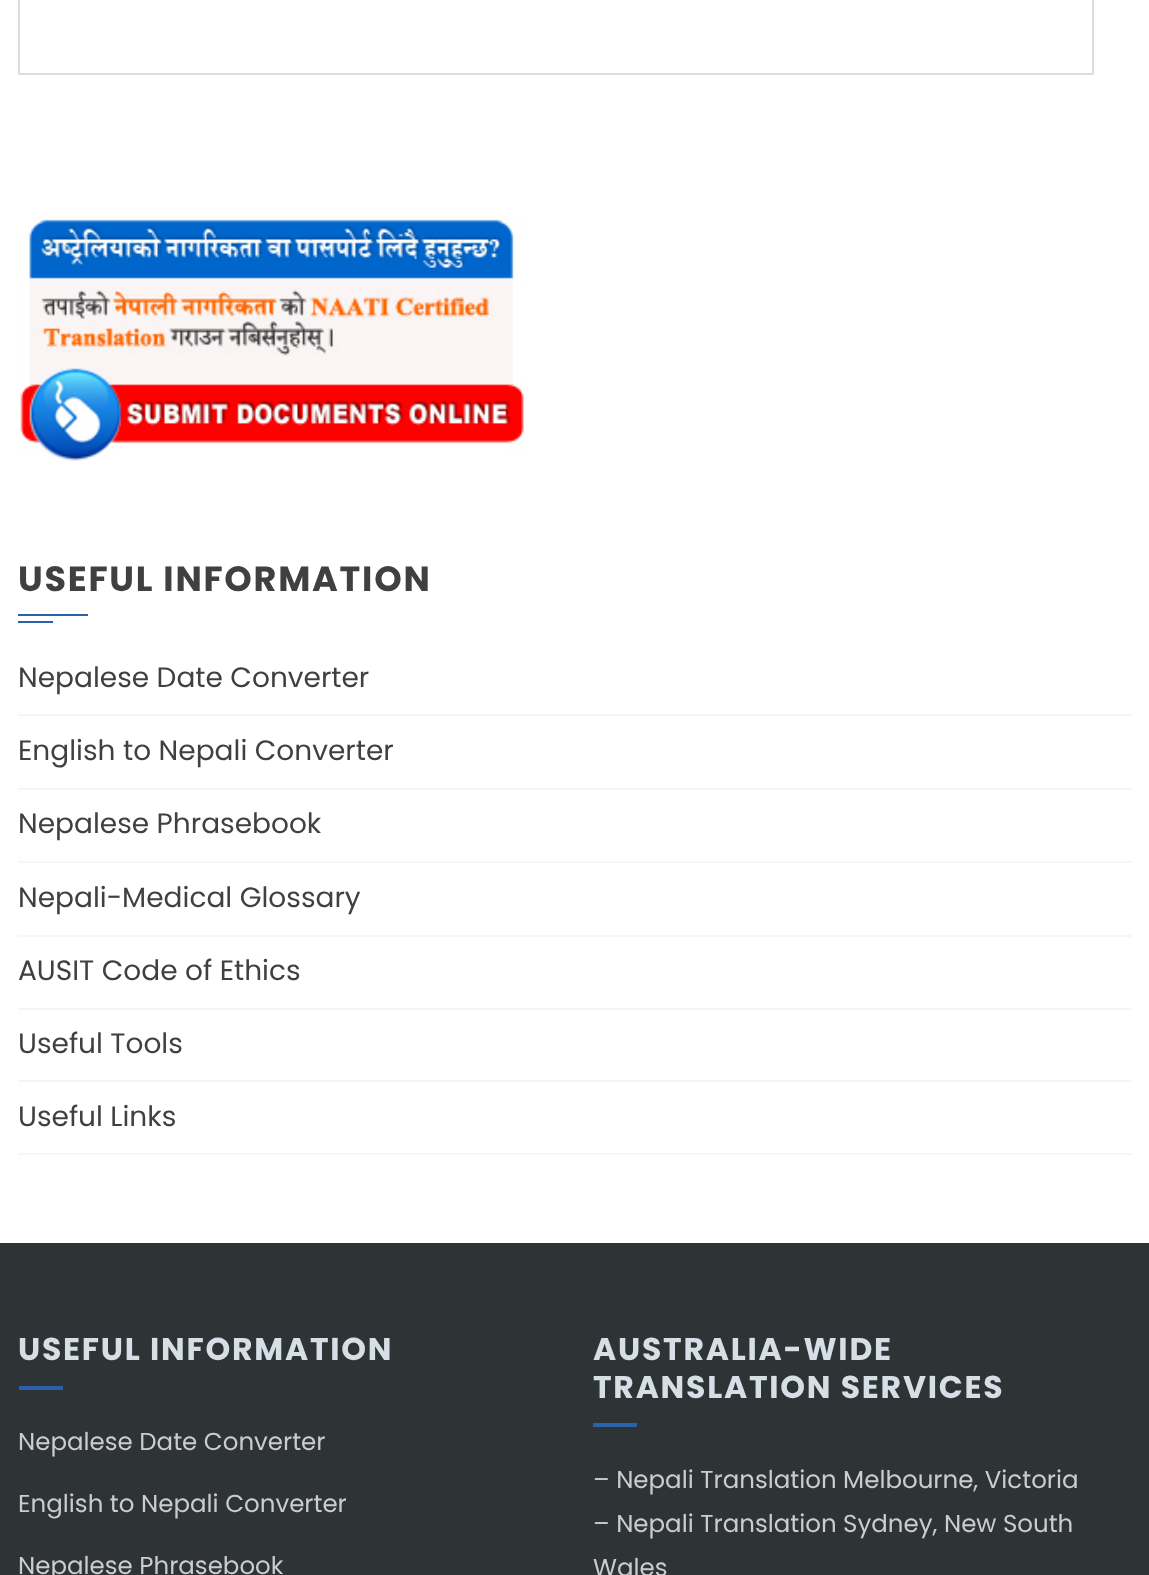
<svg xmlns="http://www.w3.org/2000/svg" width="1149" height="1575" viewBox="0 0 1149 1575">
  <rect width="100%" height="100%" fill="rgb(255,255,255)"/>
  <rect x="19" y="-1" width="1074" height="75" fill="none" stroke="rgb(221,221,221)" stroke-width="2"/>
  <image x="20" y="219" width="504" height="242" href="pic1.png"/>
  <text x="18" y="591" font-family="Poppins" font-size="35" font-weight="bold" letter-spacing="1.75" fill="rgb(64,64,64)">USEFUL INFORMATION</text>
  <rect x="18" y="614" width="70" height="2" fill="rgb(41,97,174)"/>
  <rect x="18" y="621" width="35" height="2" fill="rgb(41,97,174)"/>
  <rect x="18" y="714" width="1114" height="2" fill="rgb(246,246,246)"/>
  <text x="18" y="687" font-family="Poppins" font-size="28" fill="rgb(64,64,64)">Nepalese Date Converter</text>
  <rect x="18" y="788" width="1114" height="2" fill="rgb(246,246,246)"/>
  <text x="18" y="760" font-family="Poppins" font-size="28" fill="rgb(64,64,64)">English to Nepali Converter</text>
  <rect x="18" y="861" width="1114" height="2" fill="rgb(246,246,246)"/>
  <text x="18" y="833" font-family="Poppins" font-size="28" fill="rgb(64,64,64)">Nepalese Phrasebook</text>
  <rect x="18" y="935" width="1114" height="2" fill="rgb(246,246,246)"/>
  <text x="18" y="907" font-family="Poppins" font-size="28" fill="rgb(64,64,64)">Nepali-Medical Glossary</text>
  <rect x="18" y="1008" width="1114" height="2" fill="rgb(246,246,246)"/>
  <text x="18" y="980" font-family="Poppins" font-size="28" fill="rgb(64,64,64)">AUSIT Code of Ethics</text>
  <rect x="18" y="1080" width="1114" height="2" fill="rgb(246,246,246)"/>
  <text x="18" y="1053" font-family="Poppins" font-size="28" fill="rgb(64,64,64)">Useful Tools</text>
  <rect x="18" y="1153" width="1114" height="2" fill="rgb(246,246,246)"/>
  <text x="18" y="1126" font-family="Poppins" font-size="28" fill="rgb(64,64,64)">Useful Links</text>
  <rect x="0" y="1243" width="1149" height="332" fill="rgb(46,51,54)"/>
  <text x="18" y="1360" font-family="Poppins" font-size="31.5" font-weight="bold" letter-spacing="1.75" fill="rgb(213,223,229)">USEFUL INFORMATION</text>
  <rect x="19" y="1386" width="44" height="4" fill="rgb(41,97,174)"/>
  <g font-family="Poppins" font-size="24.5" fill="rgb(204,204,204)">
    <text x="18" y="1450">Nepalese Date Converter</text>
    <text x="18" y="1512">English to Nepali Converter</text>
    <text x="18" y="1574">Nepalese Phrasebook</text>
  </g>
  <g font-family="Poppins" font-size="31.5" font-weight="bold" letter-spacing="1.75" fill="rgb(213,223,229)">
    <text>
      <tspan x="593" y="1360">AUSTRALIA-WIDE</tspan>
      <tspan x="593" y="1398">TRANSLATION SERVICES</tspan>
    </text>
  </g>
  <rect x="593" y="1423" width="44" height="4" fill="rgb(41,97,174)"/>
  <g font-family="Poppins" font-size="24.5" fill="rgb(204,204,204)">
    <text>
      <tspan x="593" y="1488">– Nepali Translation Melbourne, Victoria</tspan>
      <tspan x="593" y="1532">– Nepali Translation Sydney, New South</tspan>
      <tspan x="593" y="1576">Wales</tspan>
    </text>
  </g>
</svg>
